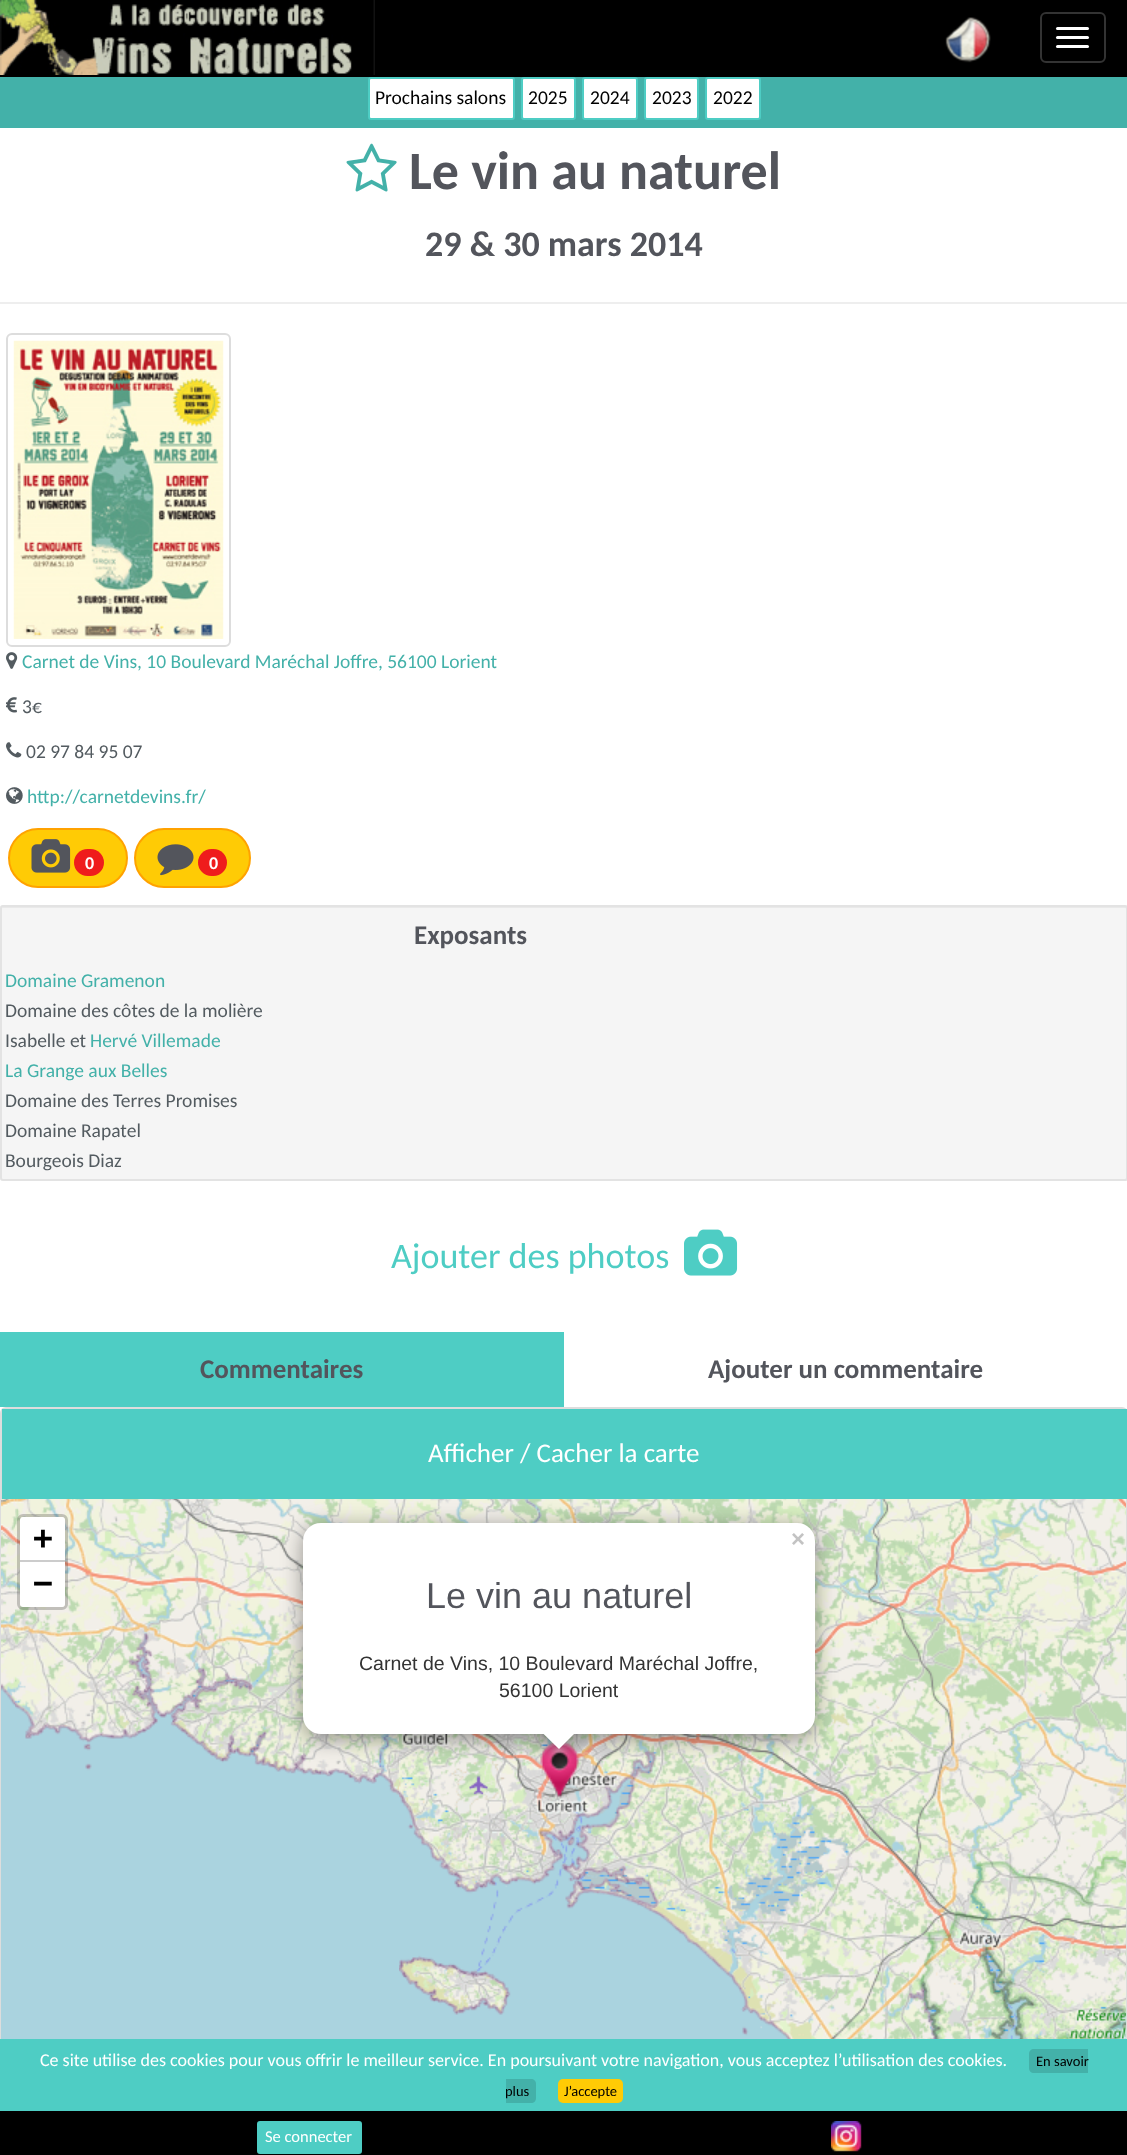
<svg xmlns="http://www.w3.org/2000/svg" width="1127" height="2155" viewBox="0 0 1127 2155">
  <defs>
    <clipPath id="clip1"><rect x="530" y="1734" width="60" height="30"/></clipPath>
    <clipPath id="clip2"><rect x="530" y="1734" width="60" height="30"/></clipPath>
  </defs>
  <rect width="100%" height="100%" fill="rgb(0,0,0)"/>
  <image x="0" y="0" width="375" height="75" href="pic1.png"/>
  <rect x="1041" y="13" width="64" height="49" rx="5" fill="none" stroke="rgb(51,51,51)" stroke-width="2"/>
  <rect x="1056" y="27" width="33" height="3" rx="1.5" fill="rgb(255,255,255)"/>
  <rect x="1056" y="36" width="33" height="3" rx="1.5" fill="rgb(255,255,255)"/>
  <rect x="1056" y="45" width="33" height="3" rx="1.5" fill="rgb(255,255,255)"/>
  <image x="945" y="17" width="46" height="46" href="pic2.png"/>
  <rect x="0" y="77" width="1127" height="51" fill="rgb(67,177,169)"/>
  <rect x="370" y="79" width="143" height="39" fill="rgb(255,255,255)"/>
  <rect x="369" y="78" width="145" height="41" rx="2" fill="none" stroke="rgb(78,205,196)" stroke-width="2"/>
  <text x="375" y="104" font-family="Carlito" font-size="19.5" fill="rgb(0,0,0)">Prochains salons</text>
  <rect x="523" y="79" width="51" height="39" fill="rgb(255,255,255)"/>
  <rect x="522" y="78" width="53" height="41" rx="2" fill="none" stroke="rgb(78,205,196)" stroke-width="2"/>
  <text x="528" y="104" font-family="Carlito" font-size="19.5" fill="rgb(0,0,0)">2025</text>
  <rect x="584" y="79" width="52" height="39" fill="rgb(255,255,255)"/>
  <rect x="583" y="78" width="54" height="41" rx="2" fill="none" stroke="rgb(78,205,196)" stroke-width="2"/>
  <text x="590" y="104" font-family="Carlito" font-size="19.5" fill="rgb(0,0,0)">2024</text>
  <rect x="646" y="79" width="51" height="39" fill="rgb(255,255,255)"/>
  <rect x="645" y="78" width="53" height="41" rx="2" fill="none" stroke="rgb(78,205,196)" stroke-width="2"/>
  <text x="652" y="104" font-family="Carlito" font-size="19.5" fill="rgb(0,0,0)">2023</text>
  <rect x="707" y="79" width="52" height="39" fill="rgb(255,255,255)"/>
  <rect x="706" y="78" width="54" height="41" rx="2" fill="none" stroke="rgb(78,205,196)" stroke-width="2"/>
  <text x="713" y="104" font-family="Carlito" font-size="19.5" fill="rgb(0,0,0)">2022</text>
  <rect x="0" y="128" width="1127" height="1285" fill="rgb(255,255,255)"/>
  <image x="346" y="143" width="51" height="49" href="pic3.png"/>
  <text x="409" y="189" font-family="Carlito" font-size="54" font-weight="bold" fill="rgb(83,85,92)">Le vin au naturel</text>
  <text x="425" y="256" font-family="Carlito" font-size="36" font-weight="bold" fill="rgb(83,85,92)">29 &amp; 30 mars 2014</text>
  <rect x="0" y="302" width="1127" height="2" fill="rgb(238,238,238)"/>
  <rect x="7" y="334" width="223" height="312" rx="5" fill="none" stroke="rgb(221,221,221)" stroke-width="2"/>
  <image x="13" y="340" width="211" height="299" href="pic4.png"/>
  <image x="6" y="652" width="12" height="17" href="pic5.png"/>
  <text x="22" y="668" font-family="Carlito" font-size="19.5" fill="rgb(67,177,169)">Carnet de Vins, 10 Boulevard Maréchal Joffre, 56100 Lorient</text>
  <image x="6" y="697" width="11" height="16" href="pic6.png"/>
  <text x="22" y="713" font-family="Carlito" font-size="19.5" fill="rgb(83,91,96)">3€</text>
  <image x="6" y="742" width="16" height="16" href="pic7.png"/>
  <text x="26" y="758" font-family="Carlito" font-size="19.5" fill="rgb(83,91,96)">02 97 84 95 07</text>
  <image x="6" y="787" width="17" height="17" href="pic8.png"/>
  <text x="27" y="803" font-family="Carlito" font-size="19.5" fill="rgb(67,177,169)">http://carnetdevins.fr/</text>
  <rect x="9" y="829" width="118" height="58" rx="29" fill="rgb(255,203,5)" stroke="rgb(255,162,0)" stroke-width="2"/>
  <image x="31" y="839" width="40" height="34" href="pic9.png"/>
  <rect x="74" y="849" width="30" height="27" rx="13.5" fill="rgb(239,28,28)"/>
  <text x="85" y="869" font-family="Carlito" font-size="18" font-weight="bold" fill="rgb(255,255,255)">0</text>
  <rect x="135" y="829" width="115" height="58" rx="29" fill="rgb(255,203,5)" stroke="rgb(255,162,0)" stroke-width="2"/>
  <image x="157" y="844" width="37" height="32" href="pic10.png"/>
  <rect x="198" y="849" width="29" height="27" rx="13.5" fill="rgb(239,28,28)"/>
  <text x="209" y="869" font-family="Carlito" font-size="18" font-weight="bold" fill="rgb(255,255,255)">0</text>
  <rect x="0" y="905" width="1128" height="276" rx="3" fill="rgb(245,245,245)"/>
  <path d="M3 908H1125C1126 908 1126 908 1126 909V1179C1127 1179 1127 1178 1127 1178V908C1127 907 1126 906 1126 906H4C3 906 2 907 2 908V909C2 908 2 908 3 908Z" fill="rgb(233,233,233)"/>
  <rect x="1" y="906" width="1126" height="274" rx="2" fill="none" stroke="rgb(227,227,227)" stroke-width="2"/>
  <text x="414" y="944" font-family="Carlito" font-size="27" font-weight="bold" fill="rgb(83,85,92)">Exposants</text>
  <text x="5" y="987" font-family="Carlito" font-size="19.5" fill="rgb(67,177,169)">Domaine Gramenon</text>
  <g font-family="Carlito" font-size="19.5" fill="rgb(83,91,96)">
    <text>
      <tspan x="5" y="1017">Domaine des côtes de la molière</tspan>
      <tspan x="5" y="1047">Isabelle et</tspan>
    </text>
  </g>
  <g font-family="Carlito" font-size="19.5" fill="rgb(67,177,169)">
    <text x="90" y="1047">Hervé Villemade</text>
    <text x="5" y="1077">La Grange aux Belles</text>
  </g>
  <g font-family="Carlito" font-size="19.5" fill="rgb(83,91,96)">
    <text>
      <tspan x="5" y="1107">Domaine des Terres Promises</tspan>
      <tspan x="5" y="1137">Domaine Rapatel</tspan>
      <tspan x="5" y="1167">Bourgeois Diaz</tspan>
    </text>
  </g>
  <text x="391" y="1268" font-family="Carlito" font-size="36" fill="rgb(78,205,196)">Ajouter des photos</text>
  <image x="684" y="1229" width="54" height="47" href="pic11.png"/>
  <rect x="0" y="1332" width="564" height="75" fill="rgb(78,205,196)"/>
  <g font-family="Carlito" font-size="27" font-weight="bold" fill="rgb(83,85,92)">
    <text x="200" y="1378">Commentaires</text>
    <text x="708" y="1378">Ajouter un commentaire</text>
  </g>
  <rect x="1" y="1408" width="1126" height="691" rx="5" fill="none" stroke="rgb(221,221,221)" stroke-width="2"/>
  <rect x="2" y="1409" width="1125" height="90" fill="rgb(78,205,196)"/>
  <text x="428" y="1462" font-family="Carlito" font-size="27" fill="rgb(255,255,255)">Afficher / Cacher la carte</text>
  <image x="15" y="1499" width="384" height="296" href="pic13.png"/>
  <rect x="18.5" y="1515.5" width="48" height="93" rx="4.5" fill="none" stroke="rgba(0,0,0,0.2)" stroke-width="3"/>
  <path d="M23 1517H62C63.5 1517 65 1518.5 65 1520V1562H20V1520C20 1518.5 21.5 1517 23 1517Z" fill="rgb(255,255,255)"/>
  <rect x="20" y="1560" width="45" height="2" fill="rgb(204,204,204)"/>
  <text x="33" y="1549" font-family="DejaVu Sans Mono" font-size="33" font-weight="bold" fill="rgb(0,0,0)">+</text>
  <path d="M20 1562H65V1604C65 1605.5 63.5 1607 62 1607H23C21.5 1607 20 1605.5 20 1604Z" fill="rgb(255,255,255)"/>
  <text x="33" y="1594" font-family="DejaVu Sans Mono" font-size="33" font-weight="bold" fill="rgb(0,0,0)">−</text>
  <image x="1" y="1499" width="14" height="297" href="pic12.png"/>
  <image x="399" y="1499" width="384" height="297" href="pic14.png"/>
  <image x="783" y="1499" width="343" height="297" href="pic15.png"/>
  <rect x="1" y="1796" width="14" height="243" fill="rgb(170,211,223)"/>
  <rect x="15" y="1795" width="384" height="244" fill="rgb(170,211,223)"/>
  <image x="399" y="1795" width="384" height="244" href="pic16.png"/>
  <image x="783" y="1795" width="343" height="244" href="pic17.png"/>
  <image x="540" y="1741" width="42" height="58" href="pic18.png"/>
  <rect x="303" y="1527" width="512" height="212" rx="18" fill="rgba(0,0,0,0.4)" filter="blur(10.5px)"/>
  <rect x="303" y="1523" width="512" height="211" rx="18" fill="rgb(255,255,255)"/>
  <text x="791" y="1547" font-family="Liberation Sans" font-size="24" font-weight="bold" fill="rgb(195,195,195)">×</text>
  <text x="426" y="1608" font-family="Liberation Sans" font-size="36" fill="rgb(83,85,92)">Le vin au naturel</text>
  <g font-family="Liberation Sans" font-size="19.5" fill="rgb(51,51,51)">
    <text x="359" y="1670">Carnet de Vins, 10 Boulevard Maréchal Joffre,</text>
    <text x="499" y="1697">56100 Lorient</text>
  </g>
  <g clip-path="url(#clip1)">
    <rect x="546" y="1724" width="26" height="25" fill="rgba(0,0,0,0.4)" filter="blur(10.5px)"/>
  </g>
  <g clip-path="url(#clip2)">
    <path d="M559 1713L577 1731L559 1749L540.5 1731Z" fill="rgb(255,255,255)"/>
  </g>
  <rect x="258" y="2122" width="103" height="31" rx="2" fill="rgb(78,205,196)" stroke="rgb(78,205,196)" stroke-width="2"/>
  <text x="265" y="2142" font-family="Carlito" font-size="16.5" fill="rgb(255,255,255)">Se connecter</text>
  <image x="831" y="2121" width="31" height="31" href="pic19.png"/>
  <rect x="0" y="2039" width="1127" height="72" fill="rgb(78,205,196)"/>
  <text x="40" y="2066" font-family="Carlito" font-size="18" fill="rgb(255,255,255)">Ce site utilise des cookies pour vous offrir le meilleur service. En poursuivant votre navigation, vous acceptez l’utilisation des cookies.</text>
  <path d="M1034 2049H1088V2073H1034C1031 2073 1029 2071 1029 2068V2054C1029 2051 1031 2049 1034 2049Z" fill="rgb(67,177,169)"/>
  <text x="1036" y="2066" font-family="Carlito" font-size="14.5" fill="rgb(0,0,0)">En savoir</text>
  <path d="M506 2079H531C534 2079 536 2081 536 2084V2098C536 2101 534 2103 531 2103H506Z" fill="rgb(67,177,169)"/>
  <text x="505" y="2096" font-family="Carlito" font-size="14.5" fill="rgb(0,0,0)">plus</text>
  <rect x="558" y="2079" width="65" height="24" rx="5" fill="rgb(255,203,5)"/>
  <text x="564" y="2096" font-family="Carlito" font-size="14.5" fill="rgb(0,0,0)">J’accepte</text>
</svg>
